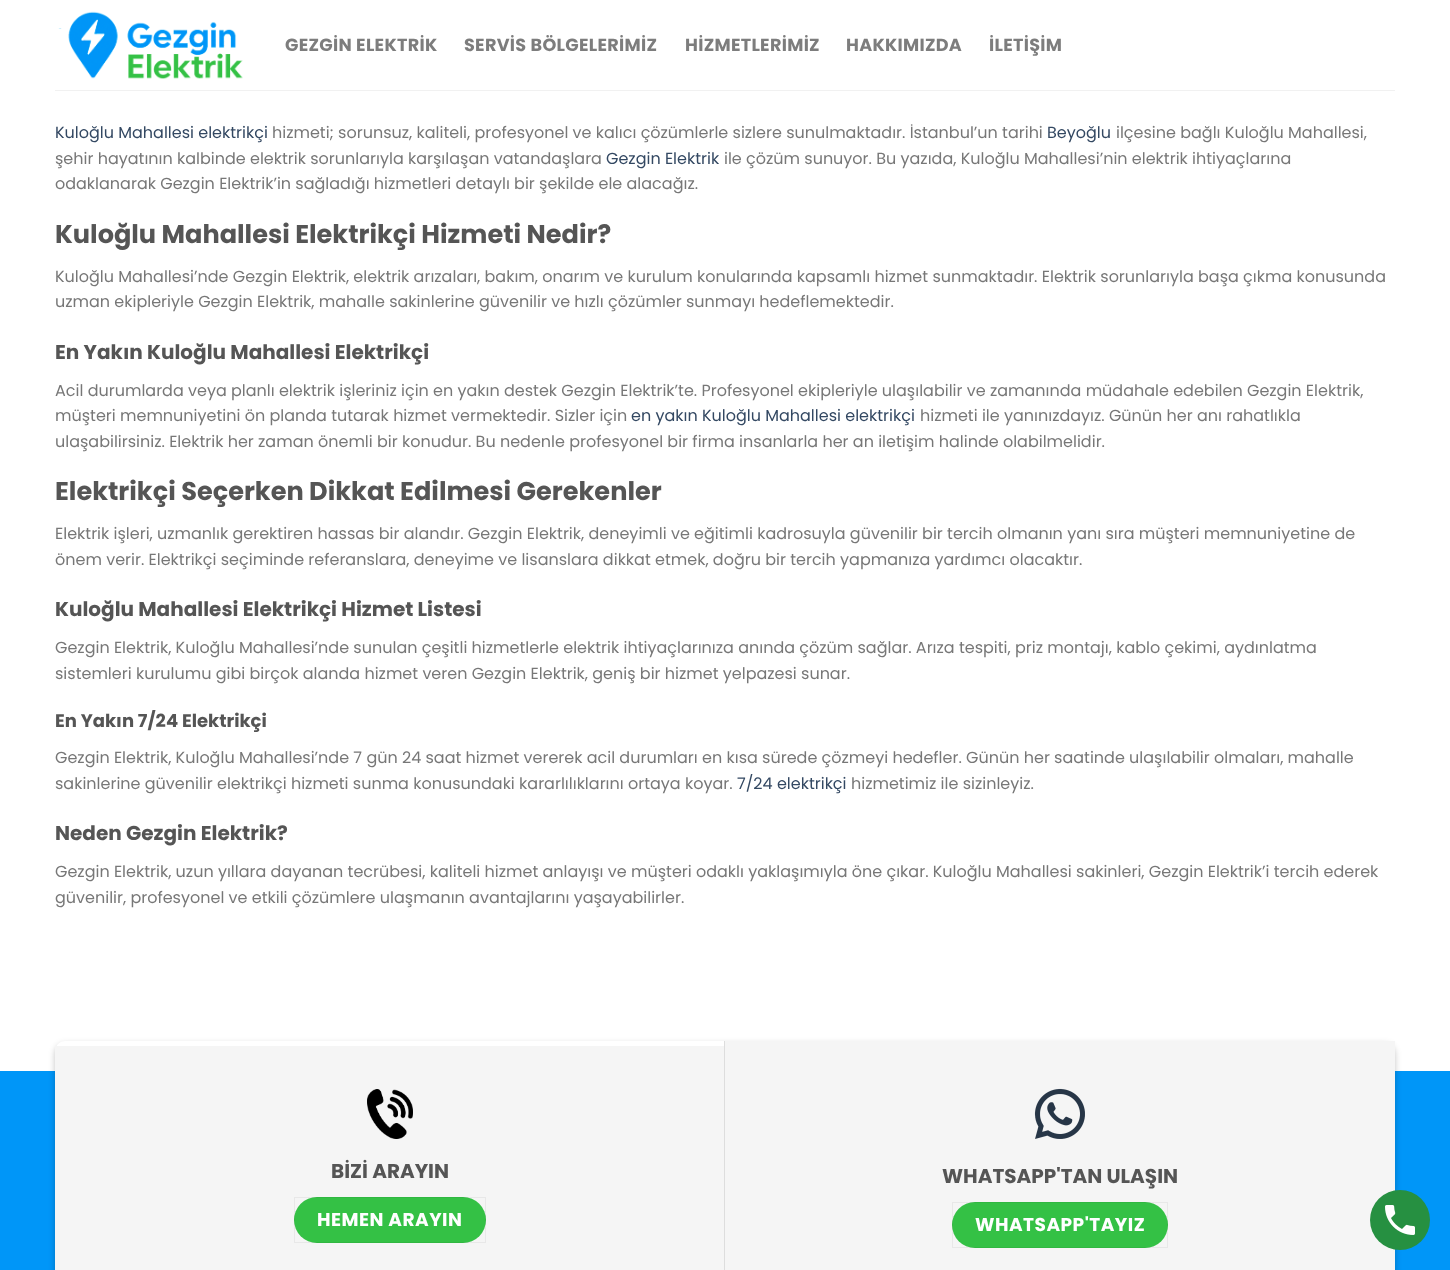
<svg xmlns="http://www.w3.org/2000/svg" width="1450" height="1270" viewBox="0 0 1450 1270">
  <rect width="100%" height="100%" fill="rgb(255,255,255)"/>
  <image x="58" y="11" width="185" height="68" href="pic1.png"/>
  <g font-family="Poppins" font-size="17.6" font-weight="bold" letter-spacing="0.3" fill="rgb(125,125,125)">
    <text x="285" y="51">GEZGİN ELEKTRİK</text>
    <text x="464" y="51">SERVİS BÖLGELERİMİZ</text>
    <text x="685" y="51">HİZMETLERİMİZ</text>
    <text x="846" y="51">HAKKIMIZDA</text>
    <text x="989" y="51">İLETİŞİM</text>
  </g>
  <rect x="55" y="90" width="1340" height="1" fill="rgb(241,241,241)"/>
  <text x="55" y="138" font-family="Poppins" font-size="16" fill="rgb(51,72,98)">Kuloğlu Mahallesi elektrikçi</text>
  <text x="272" y="138" font-family="Poppins" font-size="16" fill="rgb(119,119,119)">hizmeti; sorunsuz, kaliteli, profesyonel ve kalıcı çözümlerle sizlere sunulmaktadır. İstanbul’un tarihi</text>
  <text x="1047" y="138" font-family="Poppins" font-size="16" fill="rgb(51,72,98)">Beyoğlu</text>
  <g font-family="Poppins" font-size="16" fill="rgb(119,119,119)">
    <text x="1116" y="138">ilçesine bağlı Kuloğlu Mahallesi,</text>
    <text x="55" y="164">şehir hayatının kalbinde elektrik sorunlarıyla karşılaşan vatandaşlara</text>
  </g>
  <text x="606" y="164" font-family="Poppins" font-size="16" fill="rgb(51,72,98)">Gezgin Elektrik</text>
  <g font-family="Poppins" font-size="16" fill="rgb(119,119,119)">
    <text x="724" y="164">ile çözüm sunuyor. Bu yazıda, Kuloğlu Mahallesi’nin elektrik ihtiyaçlarına</text>
    <text x="55" y="189">odaklanarak Gezgin Elektrik’in sağladığı hizmetleri detaylı bir şekilde ele alacağız.</text>
  </g>
  <text x="55" y="243" font-family="Poppins" font-size="25.6" font-weight="bold" fill="rgb(85,85,85)">Kuloğlu Mahallesi Elektrikçi Hizmeti Nedir?</text>
  <g font-family="Poppins" font-size="16" fill="rgb(119,119,119)">
    <text>
      <tspan x="55" y="282">Kuloğlu Mahallesi’nde Gezgin Elektrik, elektrik arızaları, bakım, onarım ve kurulum konularında kapsamlı hizmet sunmaktadır. Elektrik sorunlarıyla başa çıkma konusunda</tspan>
      <tspan x="55" y="307">uzman ekipleriyle Gezgin Elektrik, mahalle sakinlerine güvenilir ve hızlı çözümler sunmayı hedeflemektedir.</tspan>
    </text>
  </g>
  <text x="55" y="359" font-family="Poppins" font-size="20" font-weight="bold" fill="rgb(85,85,85)">En Yakın Kuloğlu Mahallesi Elektrikçi</text>
  <g font-family="Poppins" font-size="16" fill="rgb(119,119,119)">
    <text>
      <tspan x="55" y="396">Acil durumlarda veya planlı elektrik işleriniz için en yakın destek Gezgin Elektrik’te. Profesyonel ekipleriyle ulaşılabilir ve zamanında müdahale edebilen Gezgin Elektrik,</tspan>
      <tspan x="55" y="421">müşteri memnuniyetini ön planda tutarak hizmet vermektedir. Sizler için</tspan>
    </text>
  </g>
  <text x="631" y="421" font-family="Poppins" font-size="16" fill="rgb(51,72,98)">en yakın Kuloğlu Mahallesi elektrikçi</text>
  <g font-family="Poppins" font-size="16" fill="rgb(119,119,119)">
    <text x="920" y="421">hizmeti ile yanınızdayız. Günün her anı rahatlıkla</text>
    <text x="55" y="447">ulaşabilirsiniz. Elektrik her zaman önemli bir konudur. Bu nedenle profesyonel bir firma insanlarla her an iletişim halinde olabilmelidir.</text>
  </g>
  <text x="55" y="500" font-family="Poppins" font-size="25.6" font-weight="bold" fill="rgb(85,85,85)">Elektrikçi Seçerken Dikkat Edilmesi Gerekenler</text>
  <g font-family="Poppins" font-size="16" fill="rgb(119,119,119)">
    <text>
      <tspan x="55" y="539">Elektrik işleri, uzmanlık gerektiren hassas bir alandır. Gezgin Elektrik, deneyimli ve eğitimli kadrosuyla güvenilir bir tercih olmanın yanı sıra müşteri memnuniyetine de</tspan>
      <tspan x="55" y="565">önem verir. Elektrikçi seçiminde referanslara, deneyime ve lisanslara dikkat etmek, doğru bir tercih yapmanıza yardımcı olacaktır.</tspan>
    </text>
  </g>
  <text x="55" y="616" font-family="Poppins" font-size="20" font-weight="bold" fill="rgb(85,85,85)">Kuloğlu Mahallesi Elektrikçi Hizmet Listesi</text>
  <g font-family="Poppins" font-size="16" fill="rgb(119,119,119)">
    <text>
      <tspan x="55" y="653">Gezgin Elektrik, Kuloğlu Mahallesi’nde sunulan çeşitli hizmetlerle elektrik ihtiyaçlarınıza anında çözüm sağlar. Arıza tespiti, priz montajı, kablo çekimi, aydınlatma</tspan>
      <tspan x="55" y="679">sistemleri kurulumu gibi birçok alanda hizmet veren Gezgin Elektrik, geniş bir hizmet yelpazesi sunar.</tspan>
    </text>
  </g>
  <text x="55" y="727" font-family="Poppins" font-size="18" font-weight="bold" fill="rgb(85,85,85)">En Yakın 7/24 Elektrikçi</text>
  <g font-family="Poppins" font-size="16" fill="rgb(119,119,119)">
    <text>
      <tspan x="55" y="763">Gezgin Elektrik, Kuloğlu Mahallesi’nde 7 gün 24 saat hizmet vererek acil durumları en kısa sürede çözmeyi hedefler. Günün her saatinde ulaşılabilir olmaları, mahalle</tspan>
      <tspan x="55" y="789">sakinlerine güvenilir elektrikçi hizmeti sunma konusundaki kararlılıklarını ortaya koyar.</tspan>
    </text>
  </g>
  <text x="737" y="789" font-family="Poppins" font-size="16" fill="rgb(51,72,98)">7/24 elektrikçi</text>
  <text x="851" y="789" font-family="Poppins" font-size="16" fill="rgb(119,119,119)">hizmetimiz ile sizinleyiz.</text>
  <text x="55" y="840" font-family="Poppins" font-size="20" font-weight="bold" fill="rgb(85,85,85)">Neden Gezgin Elektrik?</text>
  <g font-family="Poppins" font-size="16" fill="rgb(119,119,119)">
    <text>
      <tspan x="55" y="877">Gezgin Elektrik, uzun yıllara dayanan tecrübesi, kaliteli hizmet anlayışı ve müşteri odaklı yaklaşımıyla öne çıkar. Kuloğlu Mahallesi sakinleri, Gezgin Elektrik’i tercih ederek</tspan>
      <tspan x="55" y="903">güvenilir, profesyonel ve etkili çözümlere ulaşmanın avantajlarını yaşayabilirler.</tspan>
    </text>
  </g>
  <rect x="0" y="1071" width="1450" height="199" fill="rgb(0,150,248)"/>
  <rect x="55" y="1044" width="1340" height="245" rx="10" fill="rgba(0,0,0,0.23)" filter="blur(3px)"/>
  <rect x="55" y="1041" width="1340" height="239" rx="10" fill="rgb(255,255,255)"/>
  <rect x="55" y="1046" width="669" height="224" fill="rgb(245,245,245)"/>
  <image x="367" y="1089" width="46" height="50" href="pic2.png"/>
  <text x="331" y="1178" font-family="Poppins" font-size="20" font-weight="bold" fill="rgb(85,85,85)">BİZİ ARAYIN</text>
  <rect x="294" y="1197" width="192" height="46" rx="23" fill="rgb(52,193,69)"/>
  <rect x="294.5" y="1197.5" width="191" height="45" fill="none" stroke="rgba(0,0,0,0.05)"/>
  <text x="317" y="1226" font-family="Poppins" font-size="18.5" font-weight="bold" letter-spacing="0.5" fill="rgb(255,255,255)">HEMEN ARAYIN</text>
  <rect x="724" y="1041" width="1" height="229" fill="rgb(221,221,221)"/>
  <rect x="725" y="1041" width="670" height="229" fill="rgb(245,245,245)"/>
  <image x="1034" y="1088" width="51" height="51" href="pic3.png"/>
  <text x="942" y="1183" font-family="Poppins" font-size="20" font-weight="bold" fill="rgb(85,85,85)">WHATSAPP'TAN ULAŞIN</text>
  <rect x="952" y="1202" width="216" height="46" rx="23" fill="rgb(52,193,69)"/>
  <rect x="952.5" y="1202.5" width="215" height="45" fill="none" stroke="rgba(0,0,0,0.05)"/>
  <text x="975" y="1231" font-family="Poppins" font-size="18.5" font-weight="bold" letter-spacing="0.5" fill="rgb(255,255,255)">WHATSAPP'TAYIZ</text>
  <circle cx="1400" cy="1220" r="30" fill="rgb(38,144,65)"/>
  <image x="1385" y="1205" width="30" height="30" href="pic4.png"/>
</svg>
